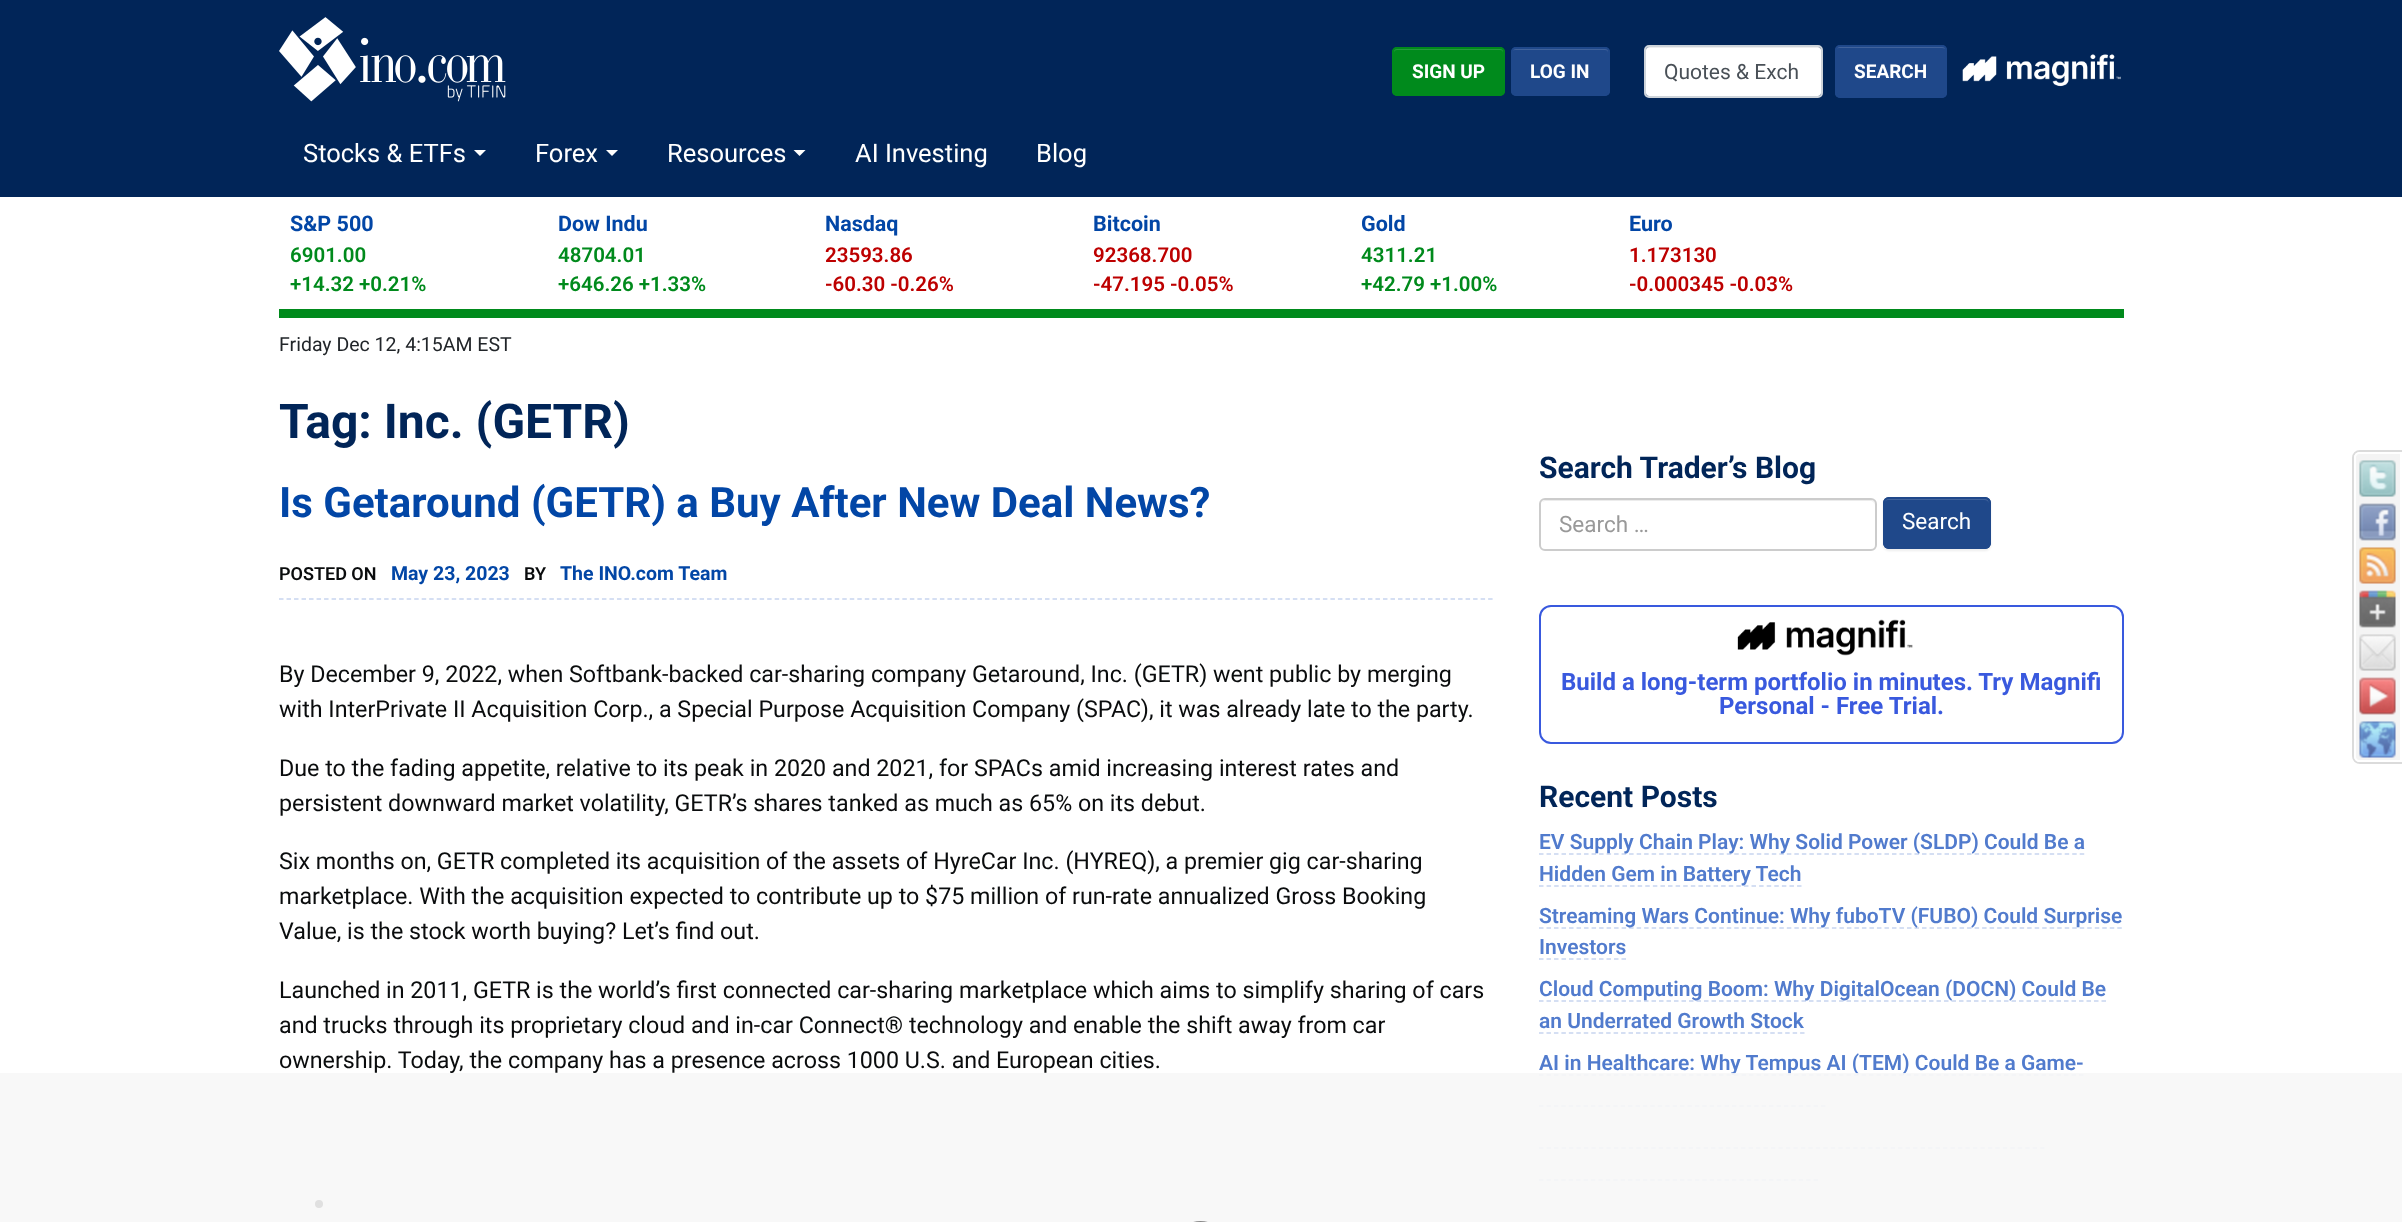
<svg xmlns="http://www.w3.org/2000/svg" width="2402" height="1222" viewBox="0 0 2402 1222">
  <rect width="100%" height="100%" fill="rgb(255,255,255)"/>
  <rect x="0" y="0" width="2402" height="197" fill="rgb(1,37,88)"/>
  <image x="279" y="17" width="227" height="85" href="pic1.png"/>
  <rect x="1392" y="47" width="113" height="49" rx="5" fill="rgb(0,138,28)"/>
  <path d="M1397 50H1500C1502 50 1503 51 1503 53V51C1503 49 1502 48 1500 48H1397C1395 48 1394 49 1394 51V53C1394 51 1395 50 1397 50Z" fill="rgb(38,156,62)"/>
  <rect x="1393" y="48" width="111" height="47" rx="4" fill="none" stroke="rgb(0,138,28)" stroke-width="2"/>
  <text x="1412" y="78" font-family="Roboto" font-size="19" font-weight="bold" fill="rgb(255,255,255)">SIGN UP</text>
  <rect x="1511" y="47" width="99" height="49" rx="5" fill="rgb(31,72,138)"/>
  <path d="M1515 50H1605C1607 50 1608 51 1608 53V51C1608 49 1607 48 1605 48H1515C1513 48 1512 49 1512 51V53C1512 51 1513 50 1515 50Z" fill="rgb(65,99,156)"/>
  <rect x="1512" y="48" width="97" height="47" rx="4" fill="none" stroke="rgb(31,72,138)" stroke-width="2"/>
  <text x="1530" y="78" font-family="Roboto" font-size="19" font-weight="bold" fill="rgb(255,255,255)">LOG IN</text>
  <rect x="1646" y="47" width="175" height="49" rx="3" fill="rgb(255,255,255)"/>
  <path d="M1649 48H1818C1820 48 1821 49 1821 51V50C1821 48 1820 47 1818 47H1649C1647 47 1646 48 1646 50V51C1646 49 1647 48 1649 48Z" fill="rgba(0,0,0,0.07)"/>
  <rect x="1645" y="46" width="177" height="51" rx="4" fill="none" stroke="rgb(206,212,218)" stroke-width="2"/>
  <text x="1664" y="79" font-family="Roboto" font-size="21" fill="rgb(73,80,87)">Quotes &amp; Exch</text>
  <rect x="1835" y="45" width="112" height="53" rx="5" fill="rgb(31,72,138)"/>
  <path d="M1839 48H1942C1944 48 1946 49 1946 51C1946 42 1928 47 1926 47H1856C1854 47 1836 42 1836 51C1836 49 1837 48 1839 48Z" fill="rgb(65,99,156)"/>
  <rect x="1836" y="46" width="110" height="51" rx="4" fill="none" stroke="rgb(31,72,138)" stroke-width="2"/>
  <text x="1854" y="78" font-family="Roboto" font-size="19" font-weight="bold" fill="rgb(255,255,255)">SEARCH</text>
  <image x="1962" y="54" width="159" height="33" href="pic2.png"/>
  <text x="303" y="162" font-family="Roboto" font-size="25.5" fill="rgb(255,255,255)">Stocks &amp; ETFs</text>
  <path d="M474 150H486L480 156Z" fill="rgb(255,255,255)"/>
  <text x="535" y="162" font-family="Roboto" font-size="25.5" fill="rgb(255,255,255)">Forex</text>
  <path d="M606 150H618L612 156Z" fill="rgb(255,255,255)"/>
  <text x="667" y="162" font-family="Roboto" font-size="25.5" fill="rgb(255,255,255)">Resources</text>
  <path d="M793.5 150H805.5L799.5 156Z" fill="rgb(255,255,255)"/>
  <g font-family="Roboto" font-size="25.5" fill="rgb(255,255,255)">
    <text x="855" y="162">AI Investing</text>
    <text x="1036" y="162">Blog</text>
  </g>
  <rect x="279" y="309" width="1845" height="9" fill="rgb(0,138,28)"/>
  <text x="290" y="231" font-family="Roboto" font-size="21.5" font-weight="bold" fill="rgb(2,70,166)">S&amp;P 500</text>
  <g font-family="Roboto" font-size="20.5" font-weight="600" fill="rgb(0,138,28)">
    <text>
      <tspan x="290" y="262">6901.00</tspan>
      <tspan x="290" y="291">+14.32 +0.21%</tspan>
    </text>
  </g>
  <text x="558" y="231" font-family="Roboto" font-size="21.5" font-weight="bold" fill="rgb(2,70,166)">Dow Indu</text>
  <g font-family="Roboto" font-size="20.5" font-weight="600" fill="rgb(0,138,28)">
    <text>
      <tspan x="558" y="262">48704.01</tspan>
      <tspan x="558" y="291">+646.26 +1.33%</tspan>
    </text>
  </g>
  <text x="825" y="231" font-family="Roboto" font-size="21.5" font-weight="bold" fill="rgb(2,70,166)">Nasdaq</text>
  <g font-family="Roboto" font-size="20.5" font-weight="600" fill="rgb(189,0,0)">
    <text>
      <tspan x="825" y="262">23593.86</tspan>
      <tspan x="825" y="291">-60.30 -0.26%</tspan>
    </text>
  </g>
  <text x="1093" y="231" font-family="Roboto" font-size="21.5" font-weight="bold" fill="rgb(2,70,166)">Bitcoin</text>
  <g font-family="Roboto" font-size="20.5" font-weight="600" fill="rgb(189,0,0)">
    <text>
      <tspan x="1093" y="262">92368.700</tspan>
      <tspan x="1093" y="291">-47.195 -0.05%</tspan>
    </text>
  </g>
  <text x="1361" y="231" font-family="Roboto" font-size="21.5" font-weight="bold" fill="rgb(2,70,166)">Gold</text>
  <g font-family="Roboto" font-size="20.5" font-weight="600" fill="rgb(0,138,28)">
    <text>
      <tspan x="1361" y="262">4311.21</tspan>
      <tspan x="1361" y="291">+42.79 +1.00%</tspan>
    </text>
  </g>
  <text x="1629" y="231" font-family="Roboto" font-size="21.5" font-weight="bold" fill="rgb(2,70,166)">Euro</text>
  <g font-family="Roboto" font-size="20.5" font-weight="600" fill="rgb(189,0,0)">
    <text>
      <tspan x="1629" y="262">1.173130</tspan>
      <tspan x="1629" y="291">-0.000345 -0.03%</tspan>
    </text>
  </g>
  <text x="279" y="351" font-family="Roboto" font-size="19.5" fill="rgb(33,37,41)">Friday Dec 12, 4:15AM EST</text>
  <text x="279" y="438" font-family="Roboto" font-size="48" font-weight="bold" fill="rgb(1,37,88)">Tag: Inc. (GETR)</text>
  <text x="279" y="517" font-family="Roboto" font-size="42" font-weight="bold" fill="rgb(2,70,166)">Is Getaround (GETR) a Buy After New Deal News?</text>
  <path d="M279 599H1494" fill="none" stroke="rgb(200,213,239)" stroke-width="1.5" stroke-dasharray="4.5 3.01"/>
  <text x="279" y="580" font-family="Roboto" font-size="18" font-weight="600" fill="rgb(10,12,13)">POSTED ON</text>
  <text x="391" y="580" font-family="Roboto" font-size="19.5" font-weight="bold" fill="rgb(2,70,166)">May 23, 2023</text>
  <text x="524" y="580" font-family="Roboto" font-size="18" font-weight="600" fill="rgb(10,12,13)">BY</text>
  <text x="560" y="580" font-family="Roboto" font-size="19.5" font-weight="bold" fill="rgb(2,70,166)">The INO.com Team</text>
  <g font-family="Roboto" font-size="23.25" fill="rgb(10,12,13)">
    <text>
      <tspan x="279" y="682">By December 9, 2022, when Softbank-backed car-sharing company Getaround, Inc. (GETR) went public by merging</tspan>
      <tspan x="279" y="717">with InterPrivate II Acquisition Corp., a Special Purpose Acquisition Company (SPAC), it was already late to the party.</tspan>
    </text>
    <text>
      <tspan x="279" y="776">Due to the fading appetite, relative to its peak in 2020 and 2021, for SPACs amid increasing interest rates and</tspan>
      <tspan x="279" y="811">persistent downward market volatility, GETR’s shares tanked as much as 65% on its debut.</tspan>
    </text>
    <text>
      <tspan x="279" y="869">Six months on, GETR completed its acquisition of the assets of HyreCar Inc. (HYREQ), a premier gig car-sharing</tspan>
      <tspan x="279" y="904">marketplace. With the acquisition expected to contribute up to $75 million of run-rate annualized Gross Booking</tspan>
      <tspan x="279" y="939">Value, is the stock worth buying? Let’s find out.</tspan>
    </text>
    <text>
      <tspan x="279" y="998">Launched in 2011, GETR is the world’s first connected car-sharing marketplace which aims to simplify sharing of cars</tspan>
      <tspan x="279" y="1033">and trucks through its proprietary cloud and in-car Connect® technology and enable the shift away from car</tspan>
      <tspan x="279" y="1068">ownership. Today, the company has a presence across 1000 U.S. and European cities.</tspan>
    </text>
  </g>
  <circle cx="319" cy="1204" r="4" fill="rgb(10,12,13)"/>
  <text x="1539" y="478" font-family="Roboto" font-size="30" font-weight="bold" fill="rgb(1,37,88)">Search Trader’s Blog</text>
  <path d="M1545 501H1870C1873 501 1875 503 1875 506V505C1875 502 1873 500 1870 500H1546C1544 500 1543 501 1542 502Z" fill="rgb(236,236,236)"/>
  <rect x="1540" y="499" width="336" height="51" rx="5" fill="none" stroke="rgb(204,204,204)" stroke-width="2"/>
  <text x="1559" y="532" font-family="Roboto" font-size="22.5" fill="rgb(153,153,153)">Search …</text>
  <rect x="1883" y="498" width="108" height="53" rx="6" fill="rgba(0,0,0,0.07)" filter="blur(1px)"/>
  <rect x="1883" y="497" width="108" height="52" rx="6" fill="rgb(31,72,138)"/>
  <path d="M1888 500H1984C1987 500 1989 502 1989 504C1989 494 1973 498 1968 498H1905C1900 498 1884 494 1884 504C1884 502 1886 500 1888 500Z" fill="rgb(65,99,156)"/>
  <rect x="1884" y="498" width="106" height="50" rx="5" fill="none" stroke="rgb(31,72,138)" stroke-width="2"/>
  <text x="1902" y="529" font-family="Roboto" font-size="22.5" fill="rgb(255,255,255)">Search</text>
  <rect x="1540" y="606" width="583" height="137" rx="11" fill="none" stroke="rgb(57,89,222)" stroke-width="2"/>
  <image x="1737" y="619" width="176" height="37" href="pic3.png"/>
  <g font-family="Roboto" font-size="24" font-weight="bold" fill="rgb(57,89,222)">
    <text x="1561" y="690">Build a long-term portfolio in minutes. Try Magnifi</text>
    <text x="1719" y="714">Personal - Free Trial.</text>
  </g>
  <text x="1539" y="807" font-family="Roboto" font-size="30" font-weight="bold" fill="rgb(1,37,88)">Recent Posts</text>
  <path d="M1539 854H2085" fill="none" stroke="rgb(200,213,239)" stroke-width="1.5" stroke-dasharray="4.5 3.01"/>
  <text x="1539" y="849" font-family="Roboto" font-size="21" font-weight="600" fill="rgb(81,123,205)">EV Supply Chain Play: Why Solid Power (SLDP) Could Be a</text>
  <path d="M1539 886H1801.5" fill="none" stroke="rgb(200,213,239)" stroke-width="1.5" stroke-dasharray="4.5 3.09"/>
  <text x="1539" y="881" font-family="Roboto" font-size="21" font-weight="600" fill="rgb(81,123,205)">Hidden Gem in Battery Tech</text>
  <path d="M1539 928H2122.5" fill="none" stroke="rgb(200,213,239)" stroke-width="1.5" stroke-dasharray="4.5 3.01"/>
  <g font-family="Roboto" font-size="21" font-weight="600" fill="rgb(81,123,205)">
    <text>
      <tspan x="1539" y="923">Streaming Wars Continue: Why fuboTV (FUBO) Could Surprise</tspan>
      <tspan x="1539" y="954">Investors</tspan>
    </text>
  </g>
  <path d="M1539 959H1626" fill="none" stroke="rgb(200,213,239)" stroke-width="1.5" stroke-dasharray="4.5 3"/>
  <path d="M1539 1001H2106" fill="none" stroke="rgb(200,213,239)" stroke-width="1.5" stroke-dasharray="4.5 3"/>
  <g font-family="Roboto" font-size="21" font-weight="600" fill="rgb(81,123,205)">
    <text>
      <tspan x="1539" y="996">Cloud Computing Boom: Why DigitalOcean (DOCN) Could Be</tspan>
      <tspan x="1539" y="1028">an Underrated Growth Stock</tspan>
    </text>
  </g>
  <path d="M1539 1033H1804.5" fill="none" stroke="rgb(200,213,239)" stroke-width="1.5" stroke-dasharray="4.5 2.96"/>
  <path d="M1539 1075H2083.5" fill="none" stroke="rgb(200,213,239)" stroke-width="1.5" stroke-dasharray="4.5 3"/>
  <text x="1539" y="1070" font-family="Roboto" font-size="21" font-weight="600" fill="rgb(81,123,205)">AI in Healthcare: Why Tempus AI (TEM) Could Be a Game-</text>
  <path d="M1539 1106H1825.5" fill="none" stroke="rgb(200,213,239)" stroke-width="1.5" stroke-dasharray="4.5 2.92"/>
  <path d="M1539 1148H2044.5" fill="none" stroke="rgb(200,213,239)" stroke-width="1.5" stroke-dasharray="4.5 2.98"/>
  <path d="M1539 1180H1818" fill="none" stroke="rgb(200,213,239)" stroke-width="1.5" stroke-dasharray="4.5 2.92"/>
  <path d="M2360 451H2402V763H2360C2356 763 2353 760 2353 756V458C2353 454 2356 451 2360 451Z" fill="none" stroke="rgb(219,219,219)" stroke-width="2"/>
  <path d="M2359 453H2401V761H2359C2357 761 2355 759 2355 757V457C2355 455 2357 453 2359 453Z" fill="rgb(244,244,244)" stroke="rgb(255,255,255)" stroke-width="2"/>
  <image x="2359" y="460" width="37" height="37" href="pic4.png"/>
  <image x="2359" y="503" width="37" height="38" href="pic5.png"/>
  <image x="2359" y="547" width="37" height="37" href="pic6.png"/>
  <image x="2359" y="590" width="37" height="38" href="pic7.png"/>
  <image x="2359" y="634" width="37" height="37" href="pic8.png"/>
  <image x="2359" y="677" width="37" height="38" href="pic9.png"/>
  <image x="2359" y="721" width="37" height="37" href="pic10.png"/>
  <rect x="0" y="1073" width="2402" height="149" fill="rgba(247,247,247,0.9)"/>
  <rect x="1185" y="1222" width="31" height="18" rx="15.5" fill="none" stroke="rgb(136,136,136)" stroke-width="2"/>
</svg>
